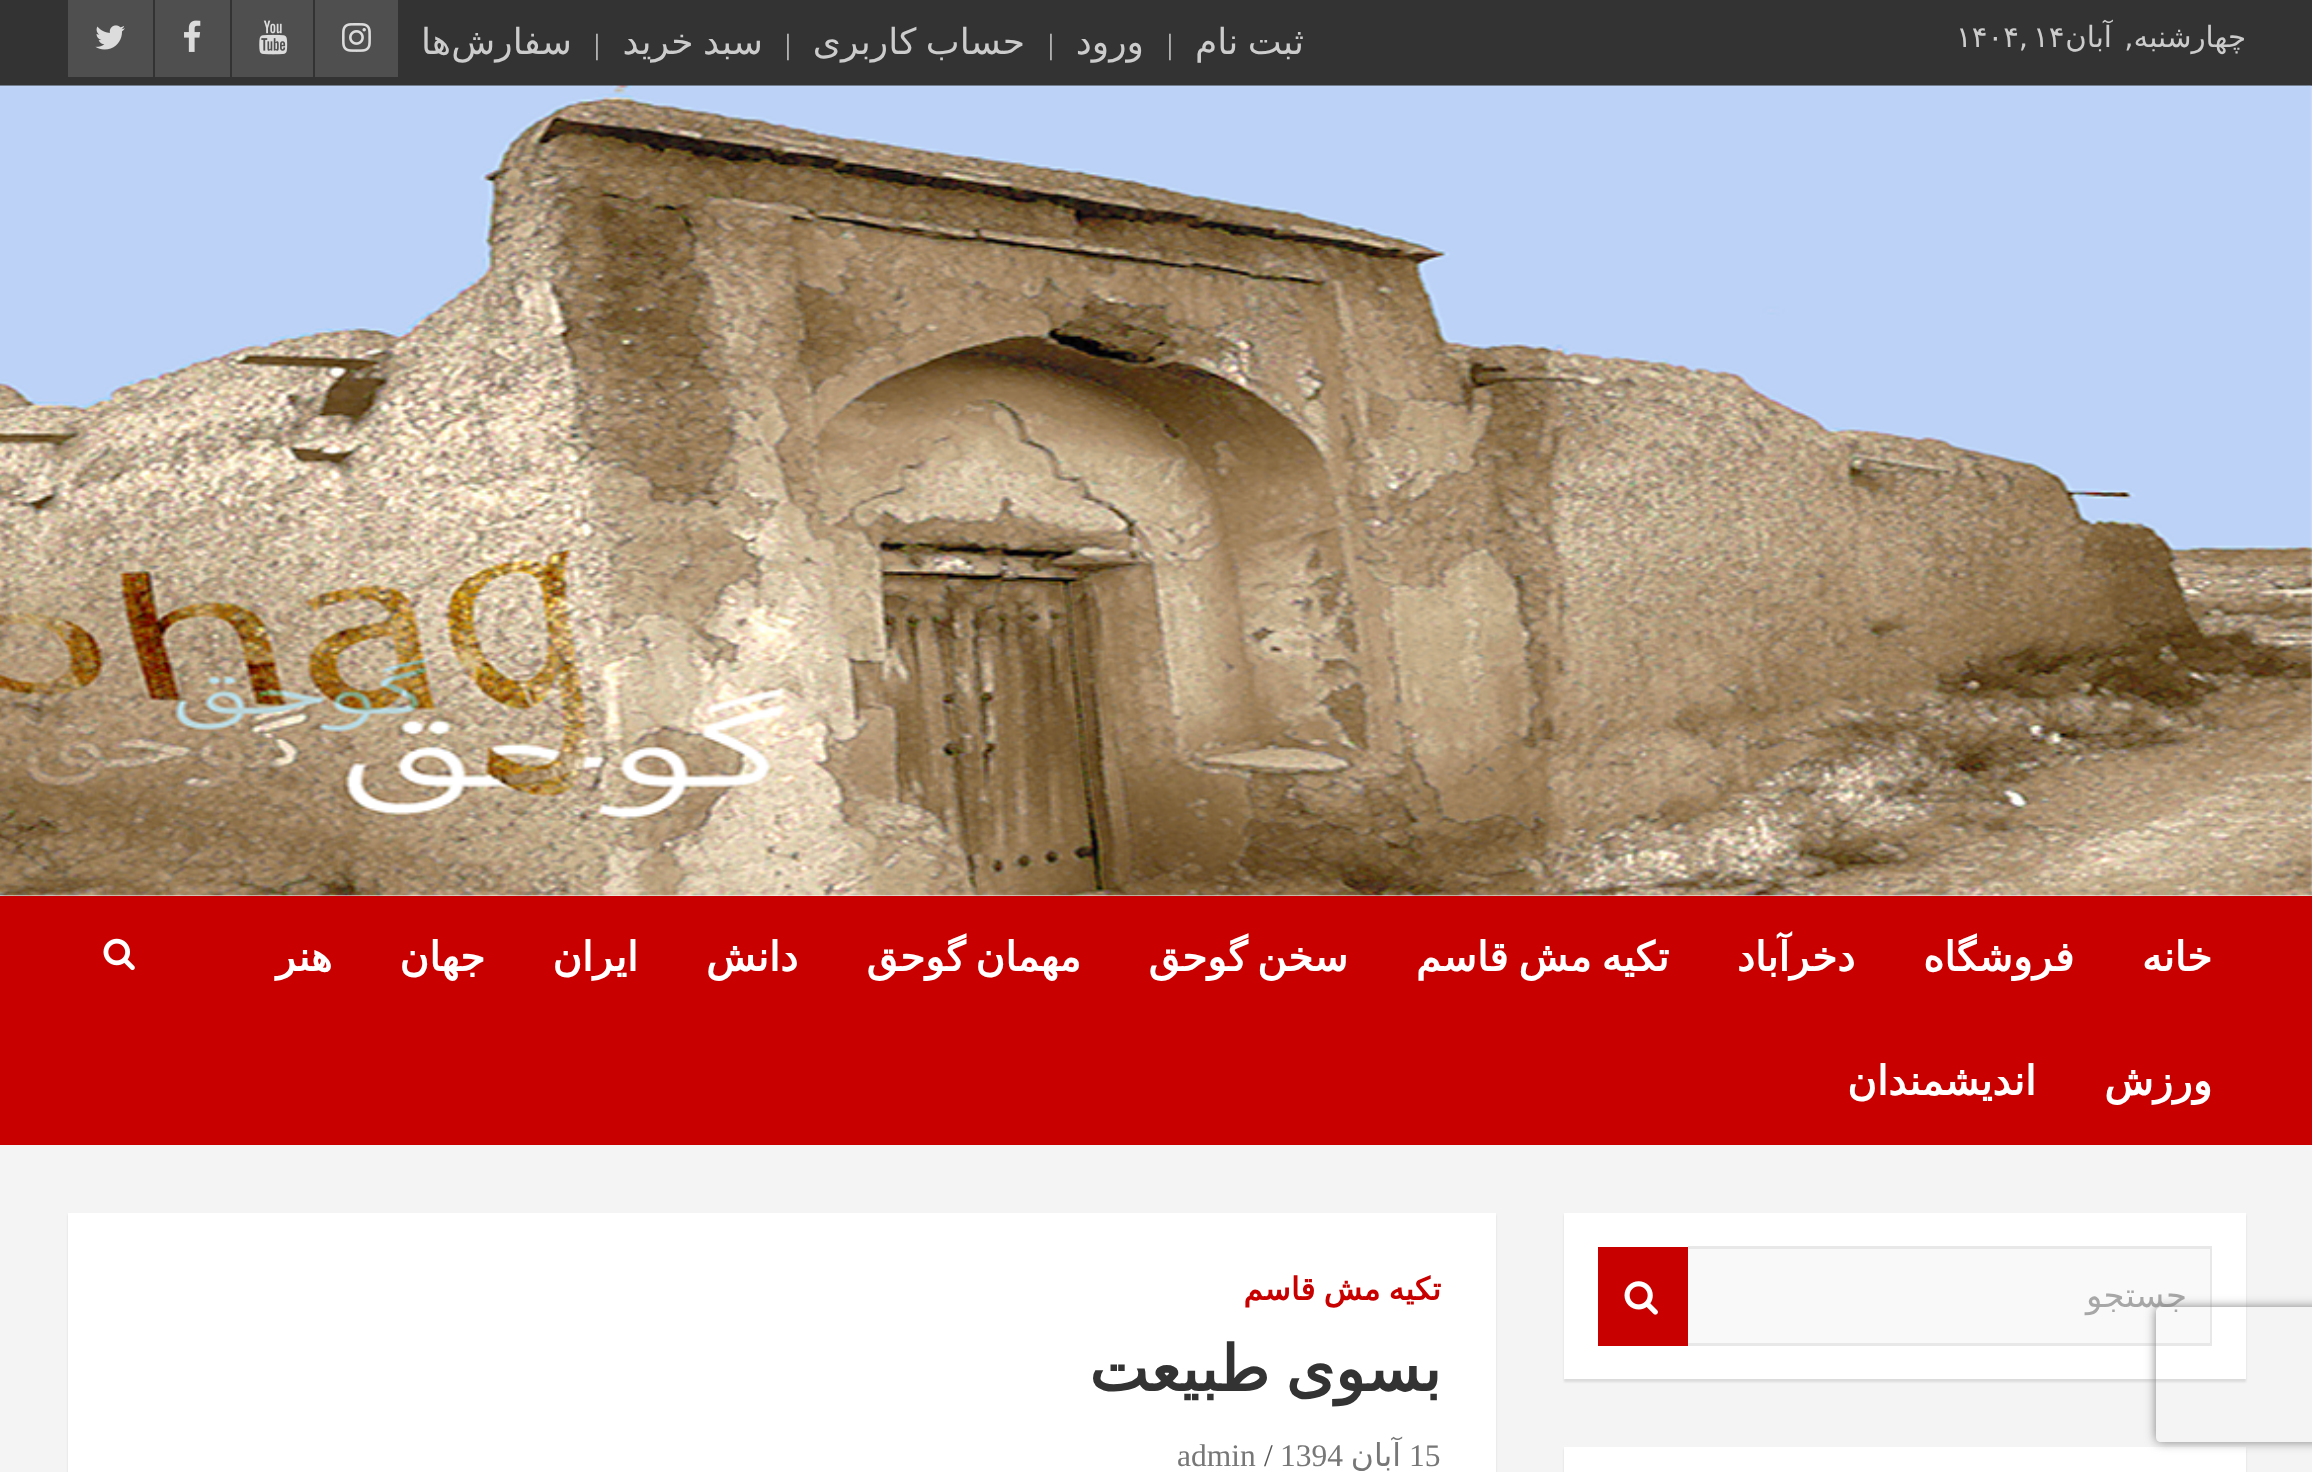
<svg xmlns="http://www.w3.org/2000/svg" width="2312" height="1472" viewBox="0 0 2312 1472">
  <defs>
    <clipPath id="clip1"><path d="M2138 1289H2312V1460H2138ZM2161 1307H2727C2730 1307 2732 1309 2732 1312V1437C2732 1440 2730 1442 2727 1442H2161C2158 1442 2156 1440 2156 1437V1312C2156 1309 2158 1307 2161 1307Z" clip-rule="evenodd"/></clipPath>
  </defs>
  <rect width="100%" height="100%" fill="rgb(244,244,244)"/>
  <rect x="0" y="0" width="2312" height="86" fill="rgb(51,51,51)"/>
  <text x="2246" y="47" word-spacing="3" font-family="DejaVu Sans" font-size="29.25" direction="rtl" fill="rgb(204,204,204)">چهارشنبه, آبان</text>
  <g font-family="DejaVu Sans" font-size="29.25" fill="rgb(204,204,204)">
    <text x="2033" y="47">۱۴</text>
    <text x="1956" y="47">۱۴۰۴,</text>
  </g>
  <text x="1304" y="54" word-spacing="-2" font-family="DejaVu Sans" font-size="36" direction="rtl" fill="rgb(204,204,204)">ثبت نام</text>
  <text x="1167" y="54" font-family="Liberation Serif" font-size="29.25" fill="rgb(204,204,204)">|</text>
  <text x="1144" y="54" font-family="DejaVu Sans" font-size="36" direction="rtl" fill="rgb(204,204,204)">ورود</text>
  <text x="1048" y="54" font-family="Liberation Serif" font-size="29.25" fill="rgb(204,204,204)">|</text>
  <text x="1025" y="54" word-spacing="-2" font-family="DejaVu Sans" font-size="36" direction="rtl" fill="rgb(204,204,204)">حساب کاربری</text>
  <text x="785" y="54" font-family="Liberation Serif" font-size="29.25" fill="rgb(204,204,204)">|</text>
  <text x="763" y="54" word-spacing="-2" font-family="DejaVu Sans" font-size="36" direction="rtl" fill="rgb(204,204,204)">سبد خرید</text>
  <text x="594" y="54" font-family="Liberation Serif" font-size="29.25" fill="rgb(204,204,204)">|</text>
  <g font-family="DejaVu Sans" font-size="36" direction="rtl" fill="rgb(204,204,204)">
    <text x="572" y="54">سفارش</text>
    <text x="451" y="54">ها</text>
  </g>
  <rect x="315" y="0" width="83" height="77" fill="rgb(79,79,79)"/>
  <image x="342" y="23" width="29" height="29" href="pic1.png"/>
  <rect x="232" y="0" width="81" height="77" fill="rgb(79,79,79)"/>
  <image x="259" y="20" width="29" height="35" href="pic2.png"/>
  <rect x="155" y="0" width="75" height="77" fill="rgb(79,79,79)"/>
  <image x="184" y="20" width="17" height="32" href="pic3.png"/>
  <rect x="68" y="0" width="85" height="77" fill="rgb(79,79,79)"/>
  <image x="95" y="25" width="30" height="25" href="pic4.png"/>
  <rect x="0" y="86" width="2312" height="810" fill="rgb(255,255,255)"/>
  <image x="0" y="85" width="2312" height="811" href="pic5.png"/>
  <rect x="0" y="896" width="2312" height="249" fill="rgb(200,0,0)"/>
  <g font-family="DejaVu Sans" font-size="40.5" font-weight="bold" direction="rtl" fill="rgb(255,255,255)">
    <text x="2212" y="971">خانه</text>
    <text x="2074" y="971">فروشگاه</text>
    <text x="1855" y="971">دخرآباد</text>
    <text x="1669" y="971" word-spacing="-3">تکیه مش قاسم</text>
    <text x="1348" y="971" word-spacing="-3">سخن گوحق</text>
    <text x="1081" y="971" word-spacing="-3">مهمان گوحق</text>
    <text x="798" y="971">دانش</text>
    <text x="638" y="971">ایران</text>
    <text x="485" y="971">جهان</text>
    <text x="332" y="971">هنر</text>
    <text x="2212" y="1095">ورزش</text>
    <text x="2036" y="1095">اندیشمندان</text>
  </g>
  <image x="103" y="938" width="32" height="33" href="pic6.png"/>
  <rect x="1564" y="1215" width="682" height="167" fill="rgba(0,0,0,0.1)" filter="blur(1px)"/>
  <rect x="1564" y="1213" width="682" height="166" fill="rgb(255,255,255)"/>
  <rect x="1688" y="1249" width="522" height="94" fill="rgb(249,249,249)"/>
  <path d="M1688 1246H2212L2210 1249H1688Z" fill="rgb(232,232,232)"/>
  <path d="M2212 1246V1346L2210 1343V1249Z" fill="rgba(0,0,0,0.09)"/>
  <path d="M2212 1346H1688V1343H2210Z" fill="rgba(0,0,0,0.09)"/>
  <text x="2187" y="1307" font-family="DejaVu Sans" font-size="34" direction="rtl" fill="rgb(167,167,167)">جستجو</text>
  <rect x="1598" y="1247" width="90" height="99" fill="rgb(200,0,0)"/>
  <image x="1624" y="1281" width="34" height="34" href="pic7.png"/>
  <rect x="1564" y="1449" width="682" height="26" fill="rgba(0,0,0,0.1)" filter="blur(1px)"/>
  <rect x="1564" y="1447" width="682" height="25" fill="rgb(255,255,255)"/>
  <rect x="68" y="1215" width="1428" height="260" fill="rgba(0,0,0,0.1)" filter="blur(1px)"/>
  <rect x="68" y="1213" width="1428" height="259" fill="rgb(255,255,255)"/>
  <text x="1441" y="1300" word-spacing="-2" font-family="DejaVu Sans" font-size="31.5" font-weight="bold" direction="rtl" fill="rgb(200,0,0)">تکیه مش قاسم</text>
  <text x="1441" y="1391" word-spacing="-4" font-family="DejaVu Sans" font-size="63" font-weight="bold" direction="rtl" fill="rgb(51,51,51)">بسوی طبیعت</text>
  <text x="1409" y="1466" font-family="Liberation Serif" font-size="31.5" fill="rgb(119,119,119)">15</text>
  <text x="1401" y="1466" font-family="DejaVu Sans" font-size="31.5" direction="rtl" fill="rgb(119,119,119)">آبان</text>
  <text x="1280" y="1466" font-family="Liberation Serif" font-size="31.5" fill="rgb(119,119,119)">1394</text>
  <text x="1264" y="1466" font-family="Liberation Serif" font-size="31.5" fill="rgb(85,85,85)">/</text>
  <text x="1177" y="1466" font-family="Liberation Serif" font-size="31.5" fill="rgb(119,119,119)">admin</text>
  <g clip-path="url(#clip1)">
    <rect x="2156" y="1307" width="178" height="135" rx="5" fill="rgb(128,128,128)" filter="blur(5.5px)"/>
  </g>
</svg>
